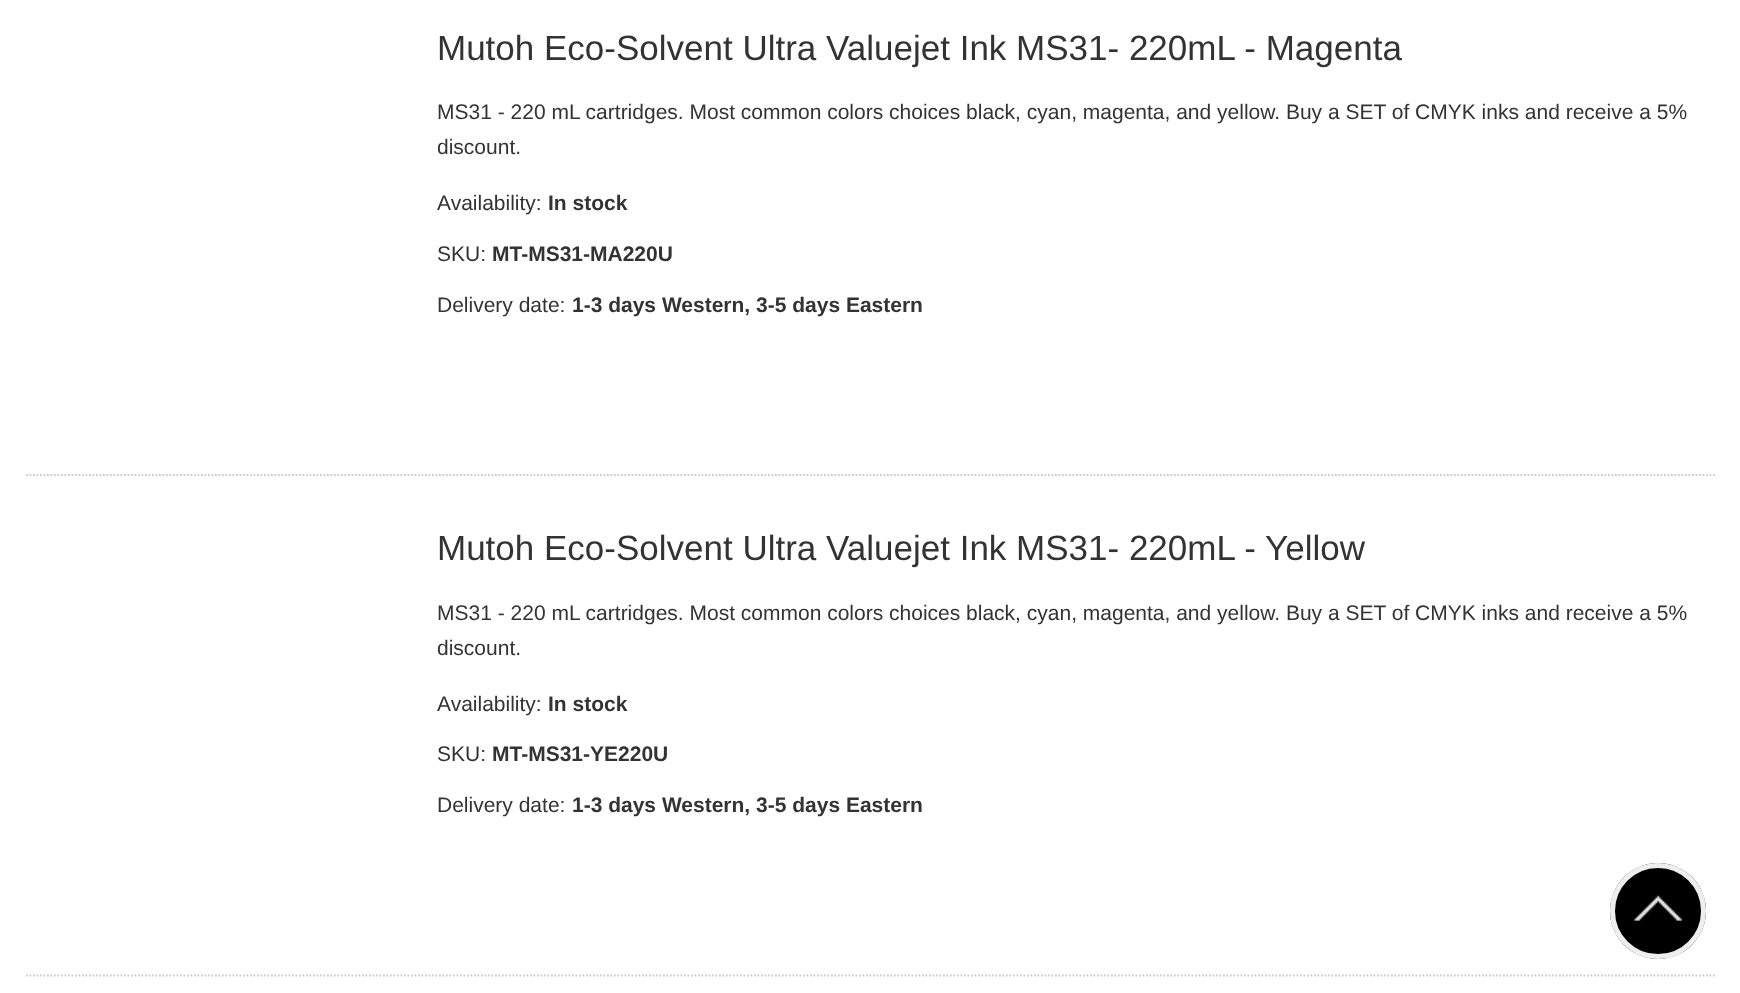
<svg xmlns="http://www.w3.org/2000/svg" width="1740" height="993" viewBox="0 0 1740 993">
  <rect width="100%" height="100%" fill="rgb(255,255,255)"/>
  <path d="M26 475H1715" fill="none" stroke="rgb(204,204,204)" stroke-width="1.8" stroke-dasharray="1.75 1.75"/>
  <text x="437" y="60" font-family="Liberation Sans" font-size="35" fill="rgb(51,51,51)">Mutoh Eco-Solvent Ultra Valuejet Ink MS31- 220mL - Magenta</text>
  <g font-family="Liberation Sans" font-size="21" fill="rgb(51,51,51)">
    <text>
      <tspan x="437" y="119">MS31 - 220 mL cartridges. Most common colors choices black, cyan, magenta, and yellow. Buy a SET of CMYK inks and receive a 5%</tspan>
      <tspan x="437" y="154">discount.</tspan>
    </text>
    <text x="437" y="210">Availability:</text>
  </g>
  <text x="548" y="210" font-family="Liberation Sans" font-size="21" font-weight="bold" fill="rgb(51,51,51)">In stock</text>
  <text x="437" y="261" font-family="Liberation Sans" font-size="21" fill="rgb(51,51,51)">SKU:</text>
  <text x="492" y="261" font-family="Liberation Sans" font-size="21" font-weight="bold" fill="rgb(51,51,51)">MT-MS31-MA220U</text>
  <text x="437" y="312" font-family="Liberation Sans" font-size="21" fill="rgb(51,51,51)">Delivery date:</text>
  <text x="572" y="312" font-family="Liberation Sans" font-size="21" font-weight="bold" fill="rgb(51,51,51)">1-3 days Western, 3-5 days Eastern</text>
  <path d="M26 975.5H1715" fill="none" stroke="rgb(204,204,204)" stroke-width="1.8" stroke-dasharray="1.75 1.75"/>
  <text x="437" y="560" font-family="Liberation Sans" font-size="35" fill="rgb(51,51,51)">Mutoh Eco-Solvent Ultra Valuejet Ink MS31- 220mL - Yellow</text>
  <g font-family="Liberation Sans" font-size="21" fill="rgb(51,51,51)">
    <text>
      <tspan x="437" y="620">MS31 - 220 mL cartridges. Most common colors choices black, cyan, magenta, and yellow. Buy a SET of CMYK inks and receive a 5%</tspan>
      <tspan x="437" y="655">discount.</tspan>
    </text>
    <text x="437" y="711">Availability:</text>
  </g>
  <text x="548" y="711" font-family="Liberation Sans" font-size="21" font-weight="bold" fill="rgb(51,51,51)">In stock</text>
  <text x="437" y="761" font-family="Liberation Sans" font-size="21" fill="rgb(51,51,51)">SKU:</text>
  <text x="492" y="761" font-family="Liberation Sans" font-size="21" font-weight="bold" fill="rgb(51,51,51)">MT-MS31-YE220U</text>
  <text x="437" y="812" font-family="Liberation Sans" font-size="21" fill="rgb(51,51,51)">Delivery date:</text>
  <text x="572" y="812" font-family="Liberation Sans" font-size="21" font-weight="bold" fill="rgb(51,51,51)">1-3 days Western, 3-5 days Eastern</text>
  <circle cx="1658" cy="911" r="48" fill="rgb(0,0,0)"/>
  <image x="1634" y="895" width="48" height="26" href="pic1.png"/>
  <circle cx="1658" cy="911" r="45.5" fill="none" stroke="rgb(238,238,238)" stroke-width="5"/>
</svg>
